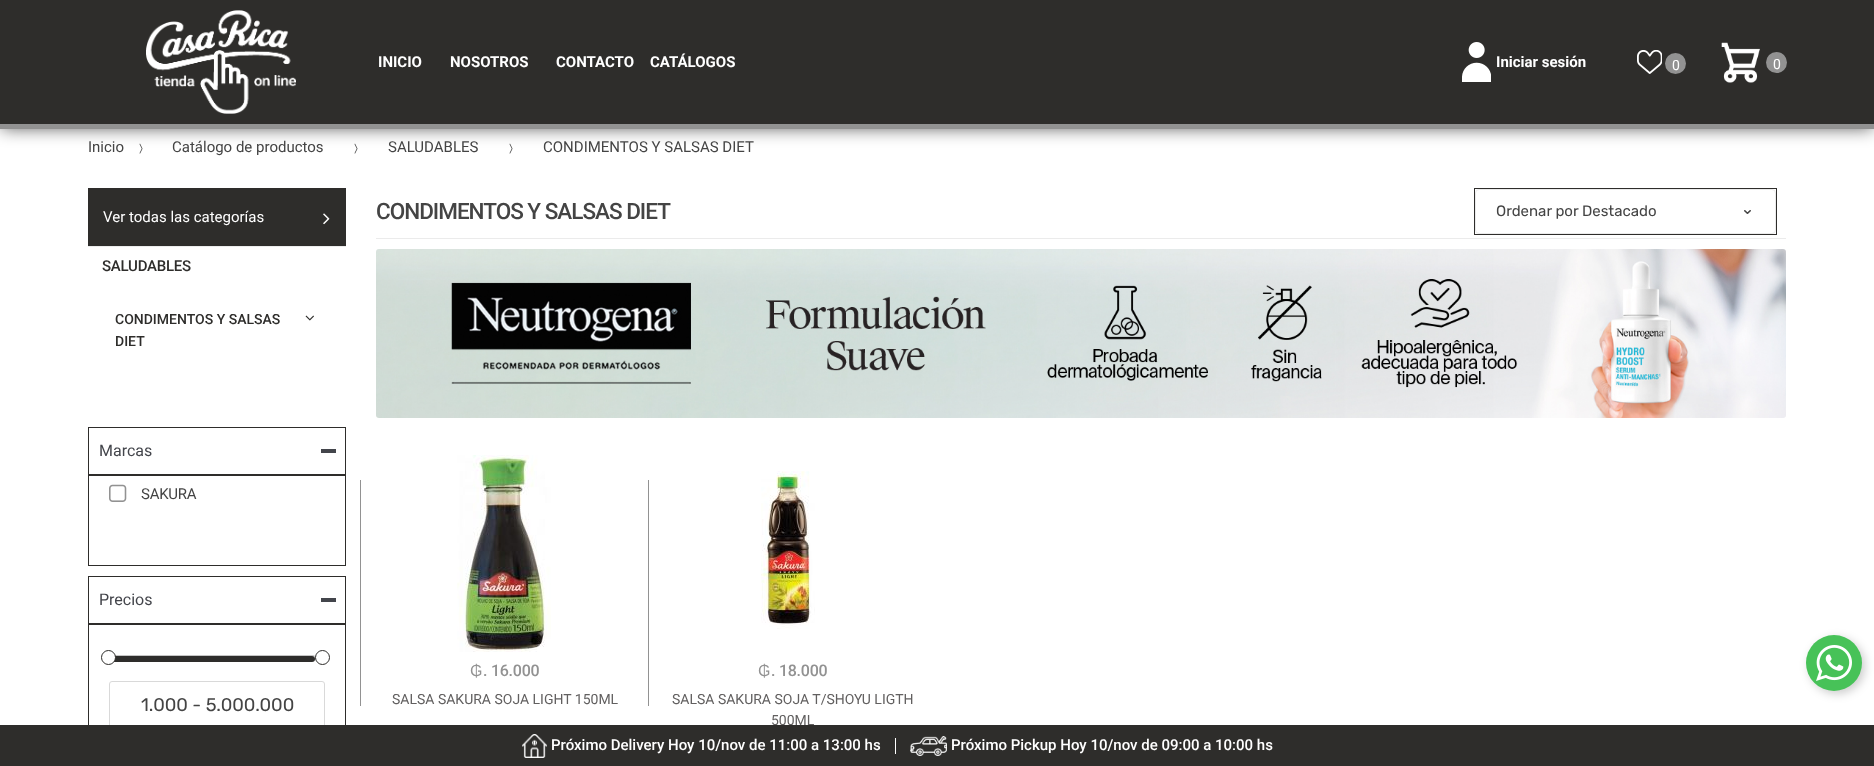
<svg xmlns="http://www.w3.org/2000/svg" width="1874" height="766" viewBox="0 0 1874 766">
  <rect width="100%" height="100%" fill="rgb(255,255,255)"/>
  <image x="139" y="143" width="4" height="11" href="pic5.png"/>
  <image x="354" y="143" width="4" height="11" href="pic5.png"/>
  <image x="509" y="143" width="4" height="11" href="pic5.png"/>
  <rect x="1" y="1" width="1872" height="127" fill="rgba(0,0,0,0.66)" filter="blur(8.5px)"/>
  <rect x="0" y="0" width="1874" height="124" fill="rgb(46,45,43)"/>
  <rect x="0" y="124" width="1874" height="5" fill="rgb(146,146,146)"/>
  <image x="146" y="10" width="150" height="104" href="pic1.png"/>
  <g font-family="Roboto" font-size="15" font-weight="bold" fill="rgb(255,255,255)">
    <text x="378" y="67">INICIO</text>
    <text x="450" y="67">NOSOTROS</text>
    <text x="556" y="67">CONTACTO</text>
    <text x="650" y="67">CATÁLOGOS</text>
  </g>
  <image x="1462" y="42" width="29" height="40" href="pic2.png"/>
  <text x="1496" y="67" font-family="Roboto" font-size="15" font-weight="bold" fill="rgb(255,255,255)">Iniciar sesión</text>
  <image x="1637" y="50" width="25" height="24" href="pic3.png"/>
  <circle cx="1675.5" cy="63.5" r="10.5" fill="rgb(146,146,146)"/>
  <text x="1672" y="70" font-family="Roboto" font-size="14" letter-spacing="-1" fill="rgb(255,255,255)">0</text>
  <image x="1721" y="42" width="39" height="41" href="pic4.png"/>
  <circle cx="1776.5" cy="62.5" r="10.5" fill="rgb(146,146,146)"/>
  <text x="1773" y="69" font-family="Roboto" font-size="14" letter-spacing="-1" fill="rgb(255,255,255)">0</text>
  <g font-family="Roboto" font-size="15" fill="rgb(68,68,68)">
    <text x="88" y="152">Inicio</text>
    <text x="172" y="152">Catálogo de productos</text>
    <text x="388" y="152">SALUDABLES</text>
    <text x="543" y="152">CONDIMENTOS Y SALSAS DIET</text>
  </g>
  <rect x="88" y="188" width="258" height="58" fill="rgb(46,45,43)"/>
  <rect x="88" y="246" width="258" height="1" fill="rgb(236,236,236)"/>
  <text x="103" y="222" font-family="Roboto" font-size="15" fill="rgb(255,255,255)">Ver todas las categorías</text>
  <image x="323" y="213" width="7" height="12" href="pic6.png"/>
  <text x="102" y="271" font-family="Roboto" font-size="15" font-weight="500" letter-spacing="-0.25" fill="rgb(46,45,43)">SALUDABLES</text>
  <text x="115" y="324" font-family="Roboto" font-size="14" font-weight="500" fill="rgb(46,45,43)">CONDIMENTOS Y SALSAS</text>
  <image x="305" y="315" width="9" height="6" href="pic7.png"/>
  <text x="115" y="346" font-family="Roboto" font-size="14" font-weight="500" fill="rgb(46,45,43)">DIET</text>
  <rect x="88.5" y="427.5" width="257" height="47" fill="none" stroke="rgb(46,45,43)"/>
  <text x="99" y="456" font-family="Roboto" font-size="16" fill="rgb(67,69,75)">Marcas</text>
  <rect x="321" y="449" width="15" height="4" fill="rgb(67,69,75)"/>
  <rect x="88.5" y="475.5" width="257" height="90" fill="none" stroke="rgb(46,45,43)"/>
  <image x="109" y="484" width="18" height="18" href="pic8.png"/>
  <text x="141" y="499" font-family="Roboto" font-size="15" letter-spacing="-0.25" fill="rgb(68,68,68)">SAKURA</text>
  <rect x="88.5" y="576.5" width="257" height="47" fill="none" stroke="rgb(46,45,43)"/>
  <text x="99" y="605" font-family="Roboto" font-size="16" fill="rgb(67,69,75)">Precios</text>
  <rect x="321" y="598" width="15" height="4" fill="rgb(67,69,75)"/>
  <rect x="88.5" y="624.5" width="257" height="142" fill="none" stroke="rgb(46,45,43)"/>
  <rect x="109.5" y="655.5" width="206" height="5" rx="2.5" fill="none" stroke="rgb(197,197,197)"/>
  <rect x="110" y="656" width="205" height="6" rx="3" fill="rgb(46,45,43)"/>
  <circle cx="108.5" cy="657.5" r="7" fill="rgb(255,255,255)" stroke="rgb(46,45,43)"/>
  <circle cx="322.5" cy="657.5" r="7" fill="rgb(255,255,255)" stroke="rgb(46,45,43)"/>
  <rect x="109.5" y="681.5" width="215" height="48" rx="2.5" fill="none" stroke="rgb(217,217,217)"/>
  <text x="141" y="711" font-family="Rubik" font-size="18.25" fill="rgb(68,68,68)">1.000 - 5.000.000</text>
  <rect x="376" y="238" width="1410" height="1" fill="rgb(235,235,235)"/>
  <text x="376" y="219" font-family="Roboto" font-size="22.5" font-weight="500" letter-spacing="-1" fill="rgb(68,68,68)">CONDIMENTOS Y SALSAS DIET</text>
  <rect x="1474.5" y="188.5" width="302" height="46" fill="none" stroke="rgb(46,45,43)"/>
  <image x="1744" y="210" width="7" height="4" href="pic9.png"/>
  <rect x="1475.5" y="189.5" width="300" height="44" rx="3.5" fill="none" stroke="rgb(235,235,235)"/>
  <text x="1496" y="216" font-family="Rubik" font-size="15" fill="rgb(68,68,68)">Ordenar por Destacado</text>
  <image x="376" y="249" width="1410" height="169" href="pic10.png"/>
  <rect x="360" y="480" width="1" height="226" fill="rgb(146,146,146)"/>
  <image x="457" y="455" width="94" height="197" href="pic11.png"/>
  <text x="470" y="676" font-family="Liberation Sans" font-size="16" letter-spacing="-0.25" fill="rgb(146,146,146)">₲</text>
  <text x="483" y="676" font-family="Roboto" font-size="16" font-weight="500" letter-spacing="-0.25" fill="rgb(146,146,146)">. 16.000</text>
  <text x="392" y="704" font-family="Roboto" font-size="14" fill="rgb(98,96,96)">SALSA SAKURA SOJA LIGHT 150ML</text>
  <rect x="648" y="480" width="1" height="226" fill="rgb(146,146,146)"/>
  <image x="761" y="471" width="54" height="158" href="pic12.png"/>
  <text x="758" y="676" font-family="Liberation Sans" font-size="16" letter-spacing="-0.25" fill="rgb(146,146,146)">₲</text>
  <text x="771" y="676" font-family="Roboto" font-size="16" font-weight="500" letter-spacing="-0.25" fill="rgb(146,146,146)">. 18.000</text>
  <g font-family="Roboto" font-size="14" fill="rgb(98,96,96)">
    <text x="672" y="704">SALSA SAKURA SOJA T/SHOYU LIGTH</text>
    <text x="771" y="725">500ML</text>
  </g>
  <rect x="0" y="725" width="1874" height="41" fill="rgb(46,45,43)"/>
  <image x="522" y="734" width="25" height="24" href="pic13.png"/>
  <text x="551" y="750" font-family="Roboto" font-size="15" font-weight="500" fill="rgb(255,255,255)">Próximo Delivery Hoy 10/nov de 11:00 a 13:00 hs</text>
  <rect x="895" y="738" width="1" height="16" fill="rgb(255,255,255)"/>
  <image x="910" y="736" width="37" height="20" href="pic14.png"/>
  <text x="951" y="750" font-family="Roboto" font-size="15" font-weight="500" fill="rgb(255,255,255)">Próximo Pickup Hoy 10/nov de 09:00 a 10:00 hs</text>
  <rect x="1809" y="638" width="56" height="56" rx="28" fill="rgba(0,0,0,0.2)" filter="blur(5px)"/>
  <circle cx="1834" cy="663" r="28" fill="rgb(71,194,88)"/>
  <image x="1816" y="645" width="36" height="36" href="pic15.png"/>
</svg>
